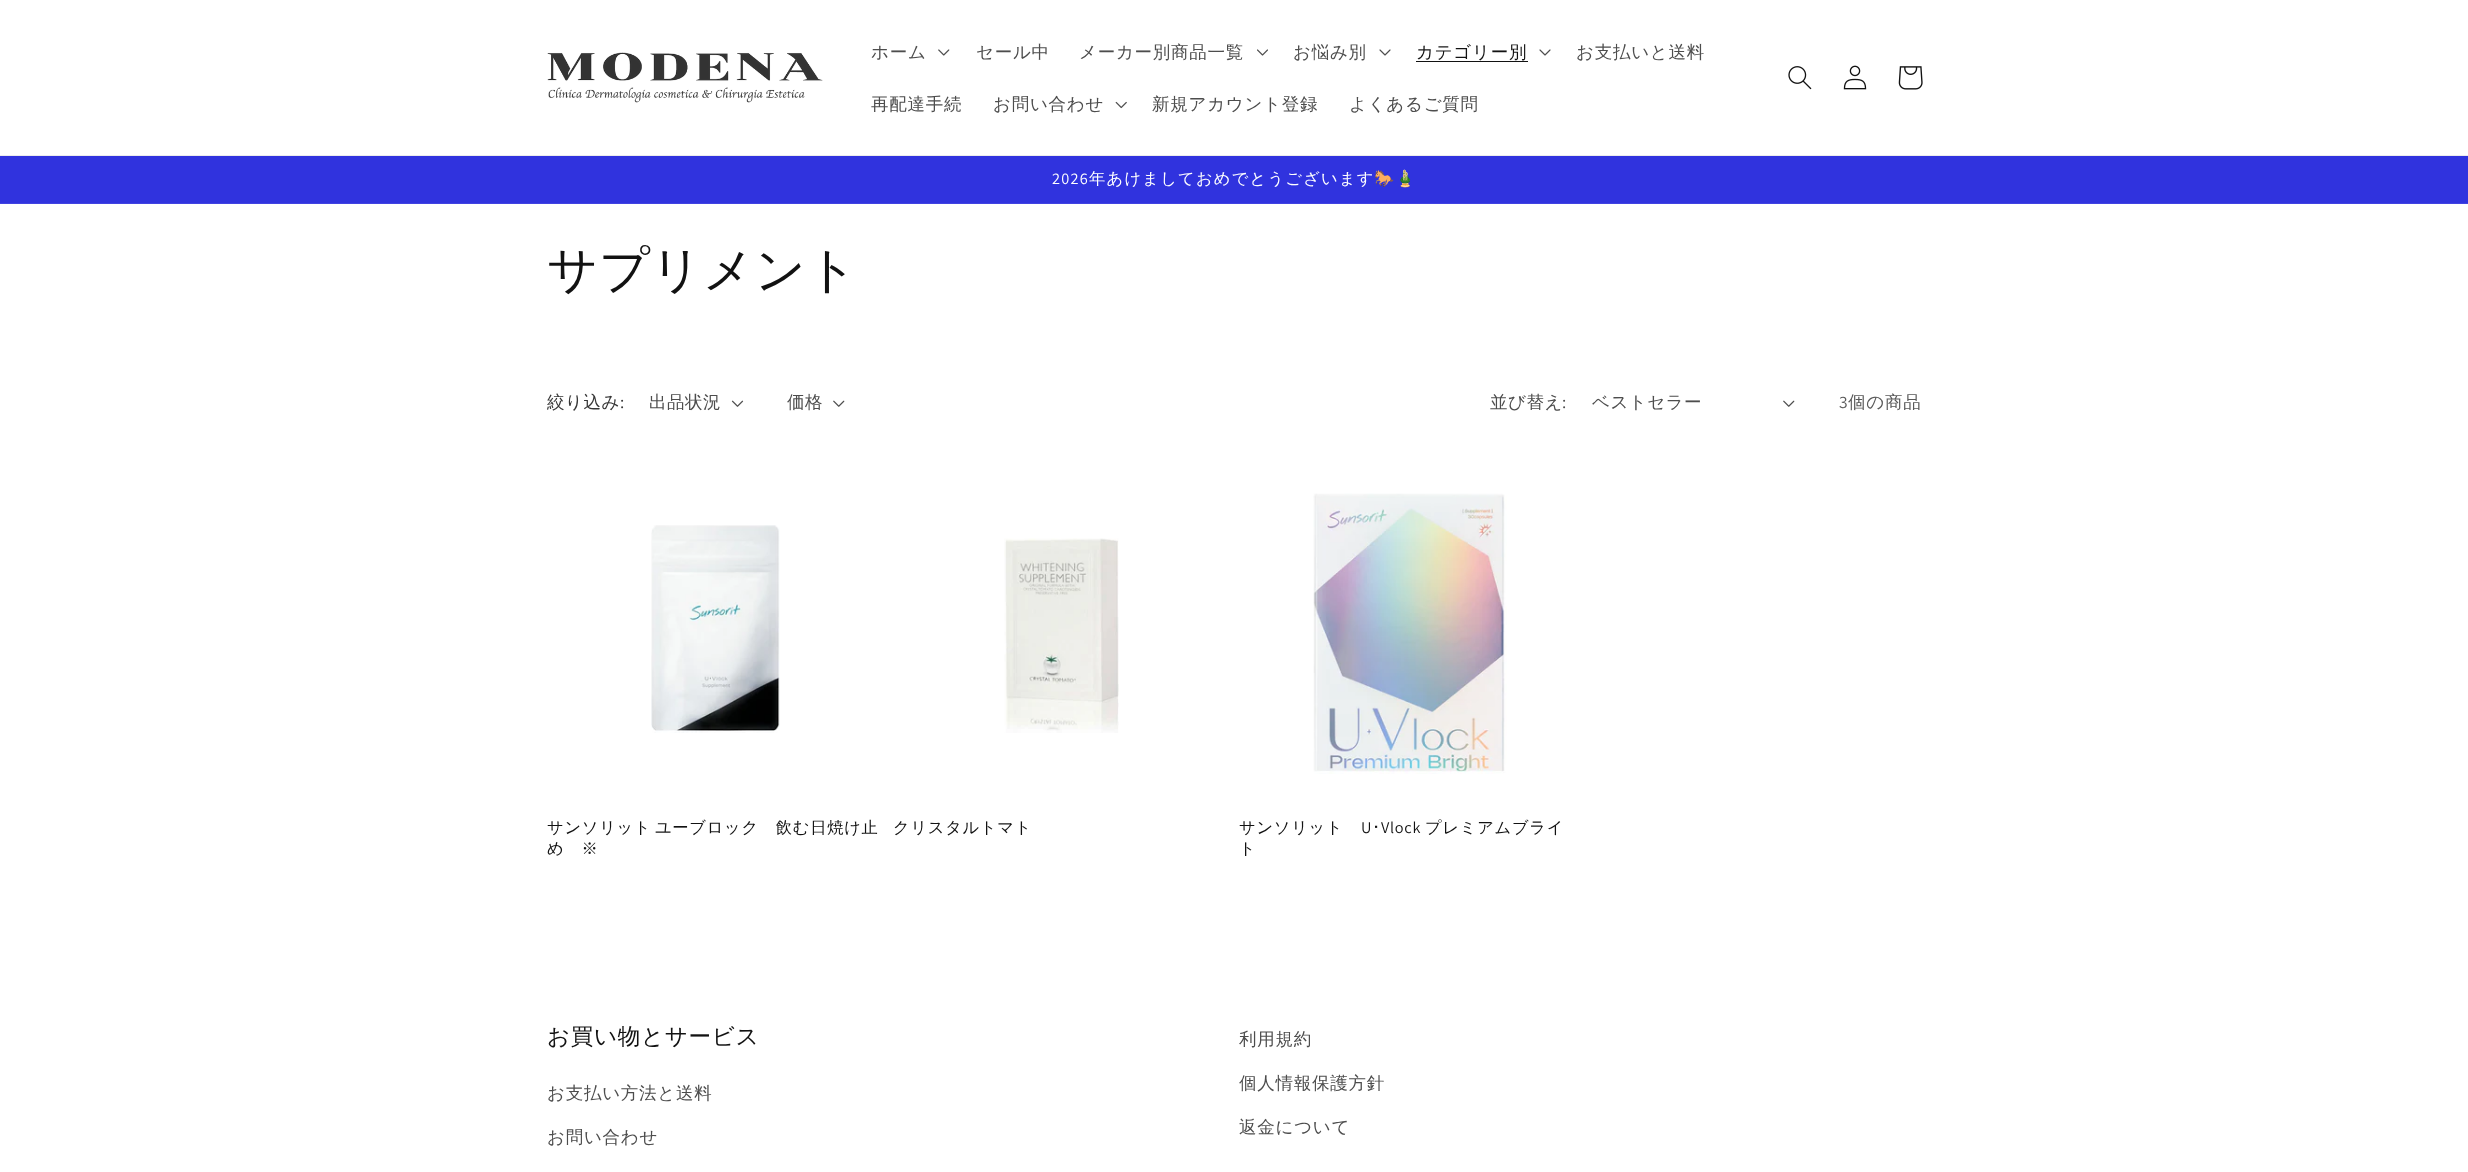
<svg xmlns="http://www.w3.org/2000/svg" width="2468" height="1172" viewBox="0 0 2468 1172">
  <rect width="100%" height="100%" fill="rgb(255,255,255)"/>
  <rect x="0" y="155" width="2468" height="1" fill="rgb(236,236,236)"/>
  <image x="547" y="52" width="276" height="51" href="pic1.png"/>
  <text x="871" y="58" font-family="WenQuanYi Zen Hei" font-size="17.5" font-weight="500" letter-spacing="0.75" fill="rgb(77,77,77)">ホーム</text>
  <image x="938" y="49" width="12" height="7" href="pic2.png"/>
  <g font-family="WenQuanYi Zen Hei" font-size="17.5" font-weight="500" letter-spacing="0.75" fill="rgb(77,77,77)">
    <text x="976" y="58">セール中</text>
    <text x="1079" y="58">メーカー別商品一覧</text>
  </g>
  <image x="1257" y="49" width="11" height="7" href="pic3.png"/>
  <text x="1293" y="58" font-family="WenQuanYi Zen Hei" font-size="17.5" font-weight="500" letter-spacing="0.75" fill="rgb(77,77,77)">お悩み別</text>
  <image x="1379" y="49" width="12" height="7" href="pic4.png"/>
  <text x="1416" y="58" font-family="WenQuanYi Zen Hei" font-size="17.5" font-weight="500" letter-spacing="0.75" fill="rgb(18,18,18)">カテゴリー別</text>
  <rect x="1416" y="61" width="112" height="1" fill="rgb(18,18,18)"/>
  <image x="1539" y="49" width="12" height="7" href="pic4.png"/>
  <g font-family="WenQuanYi Zen Hei" font-size="17.5" font-weight="500" letter-spacing="0.75" fill="rgb(77,77,77)">
    <text x="1576" y="58">お支払いと送料</text>
    <text x="871" y="110">再配達手続</text>
    <text x="993" y="110">お問い合わせ</text>
  </g>
  <image x="1115" y="101" width="12" height="8" href="pic5.png"/>
  <g font-family="WenQuanYi Zen Hei" font-size="17.5" font-weight="500" letter-spacing="0.75" fill="rgb(77,77,77)">
    <text x="1152" y="110">新規アカウント登録</text>
    <text x="1349" y="110">よくあるご質問</text>
  </g>
  <image x="1788" y="66" width="24" height="24" href="pic6.png"/>
  <image x="1843" y="65" width="24" height="25" href="pic7.png"/>
  <image x="1898" y="66" width="25" height="24" href="pic8.png"/>
  <rect x="0" y="156" width="2468" height="47" fill="rgb(48,51,222)"/>
  <rect x="0" y="203" width="2468" height="1" fill="rgb(65,67,225)"/>
  <text x="1052" y="184" font-family="Assistant" font-size="16.25" letter-spacing="1.25" fill="rgb(255,255,255)">2026</text>
  <text x="1089" y="184" font-family="WenQuanYi Zen Hei" font-size="16.25" font-weight="500" letter-spacing="1.25" fill="rgb(255,255,255)">年あけましておめでとうございます</text>
  <text x="1374" y="184" font-family="Noto Color Emoji" font-size="16.25" letter-spacing="1.25" fill="rgb(255,255,255)">🐎🎍</text>
  <text x="547" y="287" font-family="WenQuanYi Zen Hei" font-size="50" font-weight="500" letter-spacing="0.75" fill="rgb(18,18,18)">サプリメント</text>
  <text x="547" y="408" font-family="WenQuanYi Zen Hei" font-size="17.5" font-weight="500" letter-spacing="0.5" fill="rgb(54,54,54)">絞り込み</text>
  <text x="620" y="408" font-family="Assistant" font-size="17.5" letter-spacing="0.5" fill="rgb(54,54,54)">:</text>
  <text x="649" y="408" font-family="WenQuanYi Zen Hei" font-size="17.5" font-weight="500" letter-spacing="0.5" fill="rgb(77,77,77)">出品状況</text>
  <image x="731" y="400" width="13" height="7" href="pic9.png"/>
  <text x="787" y="408" font-family="WenQuanYi Zen Hei" font-size="17.5" font-weight="500" letter-spacing="0.5" fill="rgb(77,77,77)">価格</text>
  <image x="833" y="400" width="12" height="7" href="pic10.png"/>
  <text x="1490" y="408" font-family="WenQuanYi Zen Hei" font-size="17.5" font-weight="500" letter-spacing="0.5" fill="rgb(77,77,77)">並び替え</text>
  <text x="1562" y="408" font-family="Assistant" font-size="17.5" letter-spacing="0.5" fill="rgb(77,77,77)">:</text>
  <text x="1592" y="408" font-family="WenQuanYi Zen Hei" font-size="17.5" font-weight="500" letter-spacing="0.5" fill="rgb(77,77,77)">ベストセラー</text>
  <image x="1783" y="400" width="12" height="7" href="pic10.png"/>
  <text x="1839" y="408" font-family="Assistant" font-size="17.5" letter-spacing="0.75" fill="rgb(89,89,89)">3</text>
  <text x="1848" y="408" font-family="WenQuanYi Zen Hei" font-size="17.5" font-weight="500" letter-spacing="0.75" fill="rgb(89,89,89)">個の商品</text>
  <image x="651" y="525" width="129" height="208" href="pic11.png"/>
  <g font-family="WenQuanYi Zen Hei" font-size="16.25" font-weight="500" letter-spacing="0.75" fill="rgb(18,18,18)">
    <text>
      <tspan x="547" y="833" word-spacing="-2">サンソリット ユーブロック　飲む日焼け止</tspan>
      <tspan x="547" y="854">め　※</tspan>
    </text>
  </g>
  <image x="1004" y="538" width="115" height="195" href="pic12.png"/>
  <text x="893" y="833" font-family="WenQuanYi Zen Hei" font-size="16.25" font-weight="500" letter-spacing="0.75" fill="rgb(18,18,18)">クリスタルトマト</text>
  <image x="1313" y="493" width="194" height="281" href="pic13.png"/>
  <text x="1239" y="833" font-family="WenQuanYi Zen Hei" font-size="16.25" font-weight="500" letter-spacing="0.75" fill="rgb(18,18,18)">サンソリット</text>
  <text x="1361" y="833" font-family="Assistant" font-size="16.25" letter-spacing="0.75" fill="rgb(18,18,18)">U</text>
  <text x="1372" y="833" font-family="IPAPGothic" font-size="16.25" letter-spacing="0.75" fill="rgb(18,18,18)">･</text>
  <text x="1381" y="833" font-family="Assistant" font-size="16.25" letter-spacing="0.75" fill="rgb(18,18,18)">Vlock</text>
  <g font-family="WenQuanYi Zen Hei" font-size="16.25" font-weight="500" letter-spacing="0.75" fill="rgb(18,18,18)">
    <text x="1425" y="833">プレミアムブライ</text>
    <text x="1239" y="854">ト</text>
  </g>
  <text x="547" y="1044" font-family="WenQuanYi Zen Hei" font-size="22.5" font-weight="500" letter-spacing="0.75" fill="rgb(18,18,18)">お買い物とサービス</text>
  <g font-family="WenQuanYi Zen Hei" font-size="17.5" font-weight="500" letter-spacing="0.75" fill="rgb(77,77,77)">
    <text x="547" y="1099">お支払い方法と送料</text>
    <text x="547" y="1143">お問い合わせ</text>
    <text x="1239" y="1045">利用規約</text>
    <text x="1239" y="1089">個人情報保護方針</text>
    <text x="1239" y="1133">返金について</text>
  </g>
</svg>
